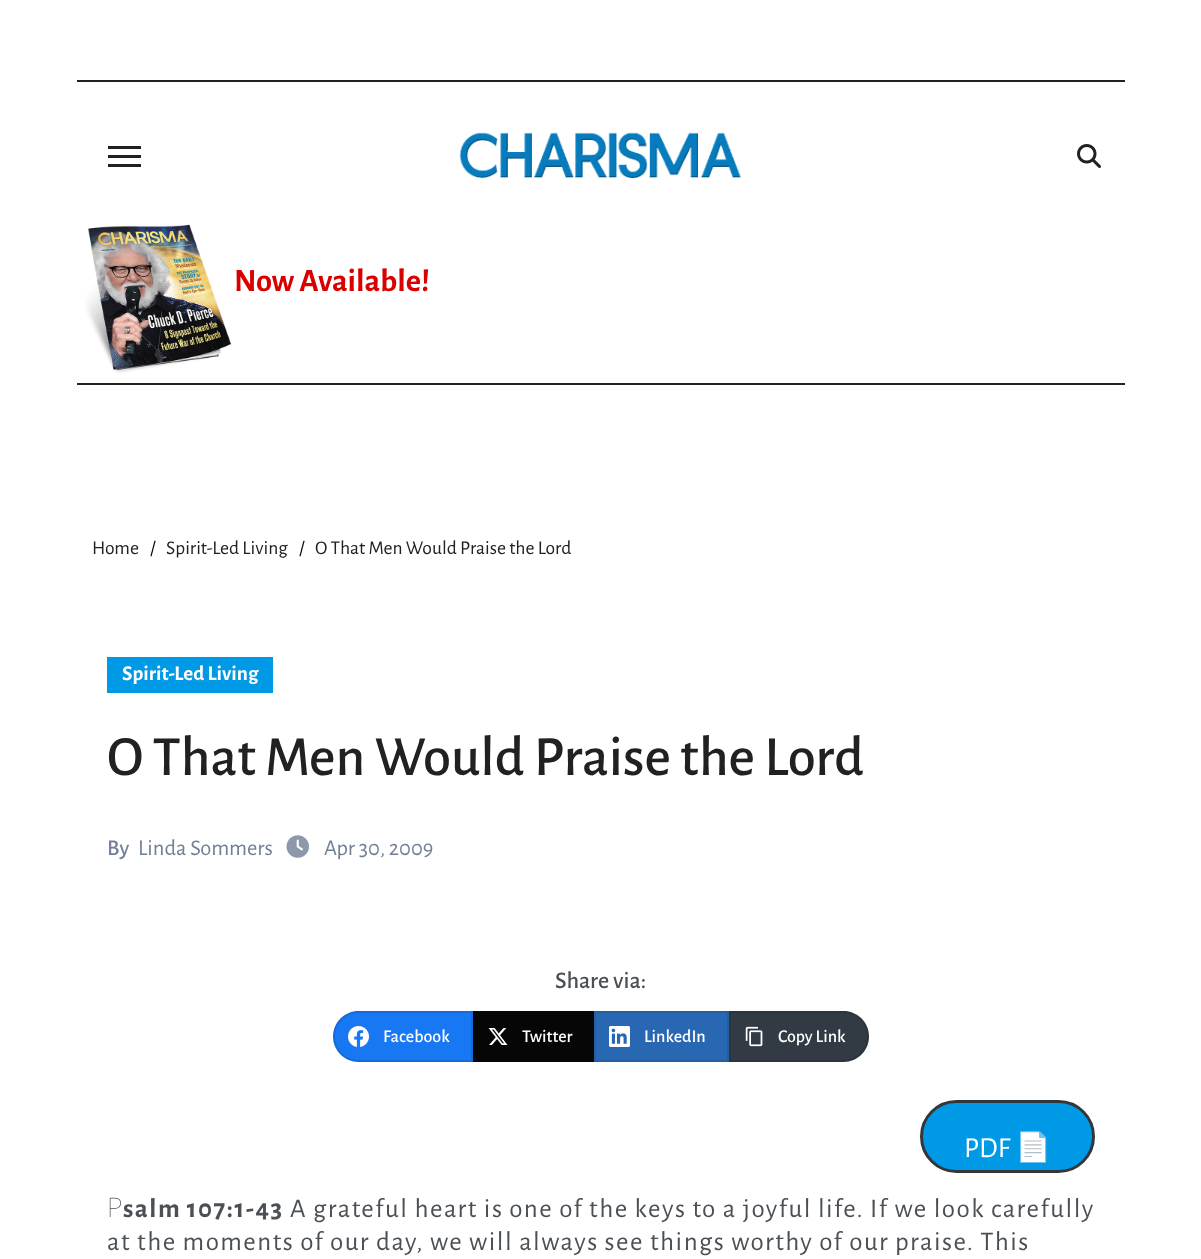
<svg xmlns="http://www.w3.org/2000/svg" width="1201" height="1259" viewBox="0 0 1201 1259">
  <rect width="100%" height="100%" fill="rgb(255,255,255)"/>
  <rect x="77" y="80" width="1048" height="2" fill="rgb(33,33,33)"/>
  <rect x="77" y="383" width="1048" height="2" fill="rgb(33,33,33)"/>
  <rect x="108" y="146" width="33" height="3" fill="rgb(33,33,33)"/>
  <rect x="108" y="155" width="33" height="3" fill="rgb(33,33,33)"/>
  <rect x="108" y="164" width="33" height="3" fill="rgb(33,33,33)"/>
  <image x="459" y="132" width="283" height="47" href="pic1.png"/>
  <image x="1077" y="144" width="24" height="24" href="pic2.png"/>
  <image x="85" y="224" width="147" height="149" href="pic3.png"/>
  <text x="234" y="291" font-family="Alegreya Sans" font-size="32.5" font-weight="bold" fill="rgb(218,0,0)">Now Available!</text>
  <text x="92" y="554" font-family="Alegreya Sans" font-size="19.5" fill="rgb(33,33,33)">Home</text>
  <text x="150" y="554" font-family="Alegreya Sans" font-size="19.5" fill="rgb(0,0,0)">/</text>
  <text x="166" y="554" font-family="Alegreya Sans" font-size="19.5" fill="rgb(33,33,33)">Spirit-Led Living</text>
  <text x="299" y="554" font-family="Alegreya Sans" font-size="19.5" fill="rgb(0,0,0)">/</text>
  <text x="315" y="554" font-family="Alegreya Sans" font-size="19.5" fill="rgb(33,33,33)">O That Men Would Praise the Lord</text>
  <rect x="107" y="657" width="166" height="36" fill="rgb(0,153,229)"/>
  <text x="122" y="680" font-family="Alegreya Sans" font-size="21" font-weight="bold" fill="rgb(255,255,255)">Spirit-Led Living</text>
  <text x="107" y="775" font-family="Alegreya Sans" font-size="57" font-weight="500" fill="rgb(33,33,33)">O That Men Would Praise the Lord</text>
  <text x="107" y="855" font-family="Alegreya Sans" font-size="22.5" font-weight="500" fill="rgb(113,128,150)">By</text>
  <text x="138" y="855" font-family="Alegreya Sans" font-size="22.5" fill="rgb(113,128,150)">Linda Sommers</text>
  <image x="286" y="835" width="23" height="23" href="pic4.png"/>
  <text x="324" y="855" font-family="Alegreya Sans" font-size="22.5" fill="rgb(113,128,150)">Apr 30, 2009</text>
  <text x="555" y="988" font-family="Alegreya Sans" font-size="24" font-weight="500" fill="rgb(75,80,86)">Share via:</text>
  <path d="M358.5 1011H473V1062H358.5C344.5 1062 333 1050.5 333 1036.5C333 1022.5 344.5 1011 358.5 1011Z" fill="rgb(24,119,242)"/>
  <path d="M358.5 1012H472V1061H358.5C345 1061 334 1050 334 1036.5C334 1023 345 1012 358.5 1012Z" fill="none" stroke="rgba(0,0,0,0.1)" stroke-width="2"/>
  <image x="348" y="1026" width="21" height="21" href="pic5.png"/>
  <text x="383" y="1042" font-family="Alegreya Sans" font-size="18" font-weight="500" fill="rgb(255,255,255)">Facebook</text>
  <rect x="473" y="1011" width="121" height="51" fill="rgb(6,6,6)"/>
  <image x="488" y="1028" width="20" height="17" href="pic6.png"/>
  <text x="522" y="1042" font-family="Alegreya Sans" font-size="18" font-weight="500" fill="rgb(255,255,255)">Twitter</text>
  <rect x="595" y="1012" width="133" height="49" fill="rgb(40,103,178)" stroke="rgb(36,93,160)" stroke-width="2"/>
  <image x="609" y="1026" width="21" height="21" href="pic7.png"/>
  <text x="644" y="1042" font-family="Alegreya Sans" font-size="18" font-weight="500" fill="rgb(255,255,255)">LinkedIn</text>
  <path d="M729 1011H843.5C857.5 1011 869 1022.5 869 1036.5C869 1050.5 857.5 1062 843.5 1062H729Z" fill="rgb(50,59,67)"/>
  <path d="M730 1012H843.5C857 1012 868 1023 868 1036.5C868 1050 857 1061 843.5 1061H730Z" fill="none" stroke="rgba(0,0,0,0.1)" stroke-width="2"/>
  <image x="745" y="1026" width="18" height="21" href="pic8.png"/>
  <text x="778" y="1042" font-family="Alegreya Sans" font-size="18" font-weight="500" fill="rgb(255,255,255)">Copy Link</text>
  <rect x="921.5" y="1101.5" width="172" height="70" rx="35" fill="rgb(0,153,229)" stroke="rgb(50,55,60)" stroke-width="3"/>
  <text x="964" y="1157" font-family="Alegreya Sans" font-size="29" fill="rgb(255,255,255)">PDF</text>
  <text x="1015" y="1157" font-family="Noto Color Emoji" font-size="29" fill="rgb(255,255,255)">📄</text>
  <text x="107" y="1217" font-family="Noto Sans" font-size="27" font-weight="100" letter-spacing="1.5" fill="rgb(75,80,86)">P</text>
  <text x="123" y="1217" font-family="Alegreya Sans" font-size="27" font-weight="bold" letter-spacing="1.5" fill="rgb(75,80,86)">salm 107:1-43</text>
  <g font-family="Alegreya Sans" font-size="27" letter-spacing="1.5" fill="rgb(75,80,86)">
    <text x="290" y="1217">A grateful heart is one of the keys to a joyful life. If we look carefully</text>
    <text x="107" y="1250">at the moments of our day, we will always see things worthy of our praise. This</text>
  </g>
</svg>
